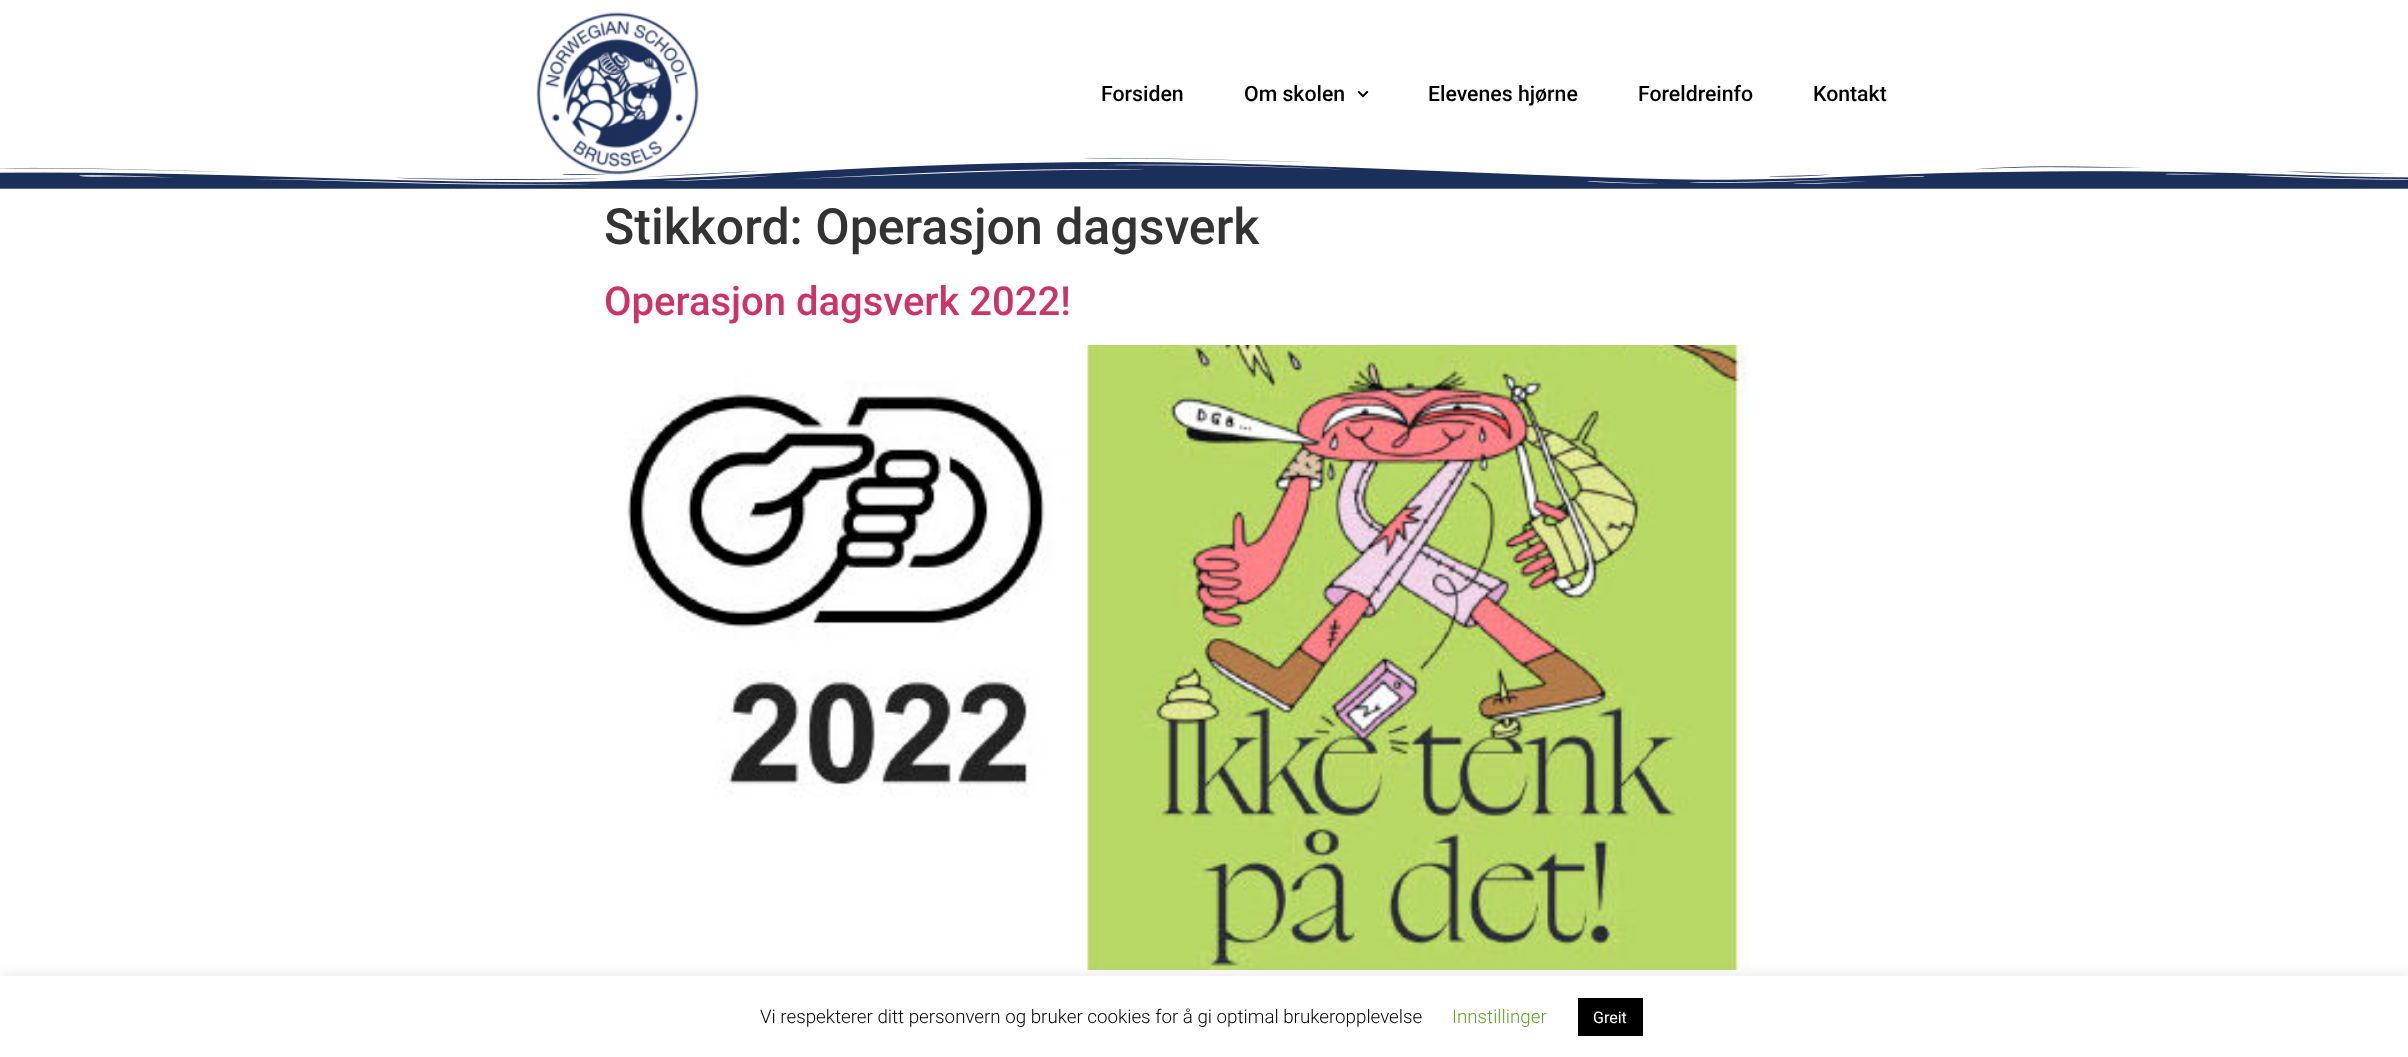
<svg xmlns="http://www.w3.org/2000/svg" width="2408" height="1057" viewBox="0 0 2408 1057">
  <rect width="100%" height="100%" fill="rgb(255,255,255)"/>
  <image x="0" y="158" width="2408" height="31" href="pic3.png"/>
  <image x="536" y="12" width="163" height="164" href="pic1.png"/>
  <g font-family="Roboto" font-size="21.25" font-weight="500" fill="rgb(0,0,0)">
    <text x="1101" y="101">Forsiden</text>
    <text x="1244" y="101">Om skolen</text>
  </g>
  <image x="1357" y="90" width="12" height="8" href="pic2.png"/>
  <g font-family="Roboto" font-size="21.25" font-weight="500" fill="rgb(0,0,0)">
    <text x="1428" y="101">Elevenes hjørne</text>
    <text x="1638" y="101">Foreldreinfo</text>
    <text x="1813" y="101">Kontakt</text>
  </g>
  <text x="604" y="244" font-family="Roboto" font-size="50" font-weight="500" fill="rgb(51,51,51)">Stikkord: Operasjon dagsverk</text>
  <text x="604" y="315" font-family="Roboto" font-size="40" font-weight="500" fill="rgb(204,51,102)">Operasjon dagsverk 2022!</text>
  <image x="624" y="345" width="1125" height="625" href="pic4.png"/>
  <rect x="0" y="975" width="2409" height="81" fill="rgba(172,171,171,0.3)" filter="blur(6px)"/>
  <rect x="0" y="976" width="2408" height="81" fill="rgb(255,255,255)"/>
  <text x="760" y="1023" font-family="Roboto" font-size="18.75" font-weight="300" fill="rgb(0,0,0)">Vi respekterer ditt personvern og bruker cookies for å gi optimal brukeropplevelse</text>
  <text x="1452" y="1023" font-family="Roboto" font-size="18.75" font-weight="300" fill="rgb(98,163,41)">Innstillinger</text>
  <rect x="1578" y="998" width="65" height="38" fill="rgb(0,0,0)"/>
  <text x="1593" y="1023" font-family="Roboto" font-size="16" fill="rgb(255,255,255)">Greit</text>
</svg>
